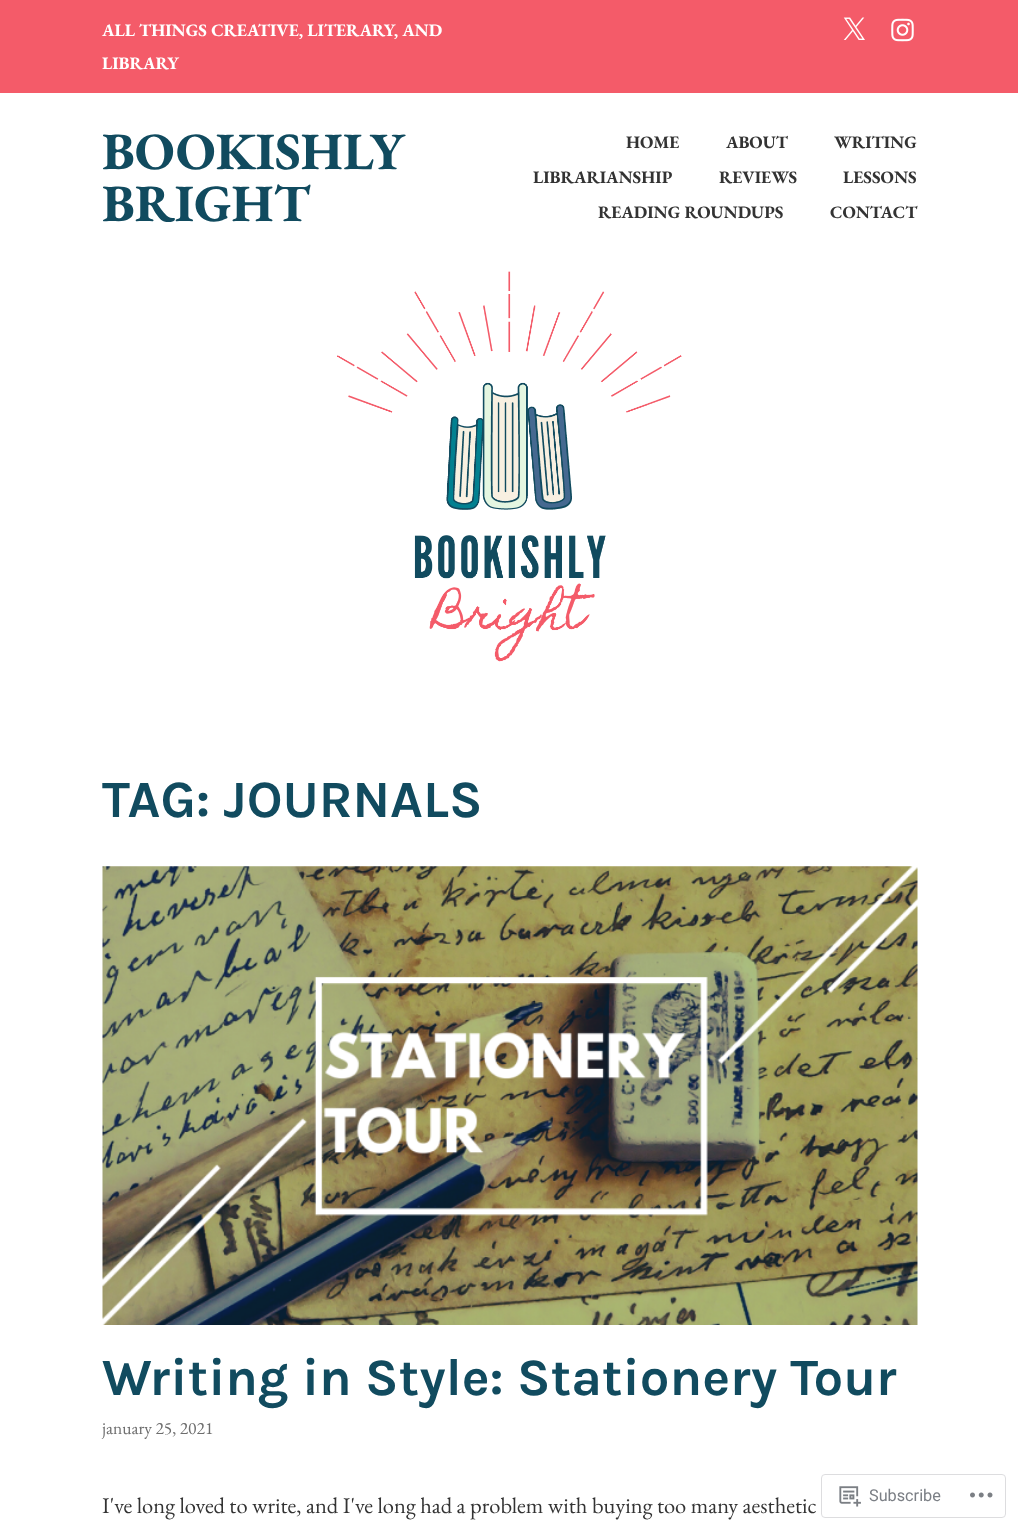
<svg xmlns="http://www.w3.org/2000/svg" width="1018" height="1530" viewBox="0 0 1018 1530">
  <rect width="100%" height="100%" fill="rgb(255,255,255)"/>
  <rect x="0" y="0" width="1018" height="93" fill="rgb(244,91,105)"/>
  <g font-family="EB Garamond" font-size="17.5" font-weight="bold" fill="rgb(255,255,255)">
    <text>
      <tspan x="102" y="36">ALL THINGS CREATIVE, LITERARY, AND</tspan>
      <tspan x="102" y="69">LIBRARY</tspan>
    </text>
  </g>
  <image x="843" y="17" width="22" height="23" href="pic1.png"/>
  <image x="891" y="18" width="23" height="24" href="pic2.png"/>
  <g font-family="EB Garamond" font-size="52.5" font-weight="bold" fill="rgb(17,75,95)">
    <text>
      <tspan x="102" y="169">BOOKISHLY</tspan>
      <tspan x="102" y="221">BRIGHT</tspan>
    </text>
  </g>
  <g font-family="EB Garamond" font-size="17.5" font-weight="bold" fill="rgb(51,51,51)">
    <text x="626" y="148">HOME</text>
    <text x="726" y="148">ABOUT</text>
    <text x="834" y="148">WRITING</text>
    <text x="533" y="183">LIBRARIANSHIP</text>
    <text x="719" y="183">REVIEWS</text>
    <text x="843" y="183">LESSONS</text>
    <text x="598" y="218">READING ROUNDUPS</text>
    <text x="830" y="218">CONTACT</text>
  </g>
  <image x="337" y="271" width="345" height="391" href="pic3.png"/>
  <text x="102" y="817" font-family="Karla" font-size="52.5" font-weight="bold" fill="rgb(17,75,95)">TAG: JOURNALS</text>
  <image x="102" y="866" width="816" height="459" href="pic4.png"/>
  <text x="102" y="1395" font-family="Karla" font-size="52.5" font-weight="bold" fill="rgb(17,75,95)">Writing in Style: Stationery Tour</text>
  <text x="102" y="1434" font-family="EB Garamond" font-size="17.5" fill="rgb(109,109,109)">january 25, 2021</text>
  <text x="102" y="1513" font-family="EB Garamond" font-size="22.5" fill="rgb(51,51,51)">I've long loved to write, and I've long had a problem with buying too many aesthetic</text>
  <rect x="821.5" y="1474.5" width="184" height="43" rx="3.5" fill="none" stroke="rgba(220,220,222,0.98)"/>
  <image x="839" y="1486" width="22" height="21" href="pic5.png"/>
  <text x="869" y="1501" font-family="Roboto" font-size="16.25" fill="rgb(123,127,133)">Subscribe</text>
  <image x="970" y="1492" width="23" height="6" href="pic6.png"/>
</svg>
